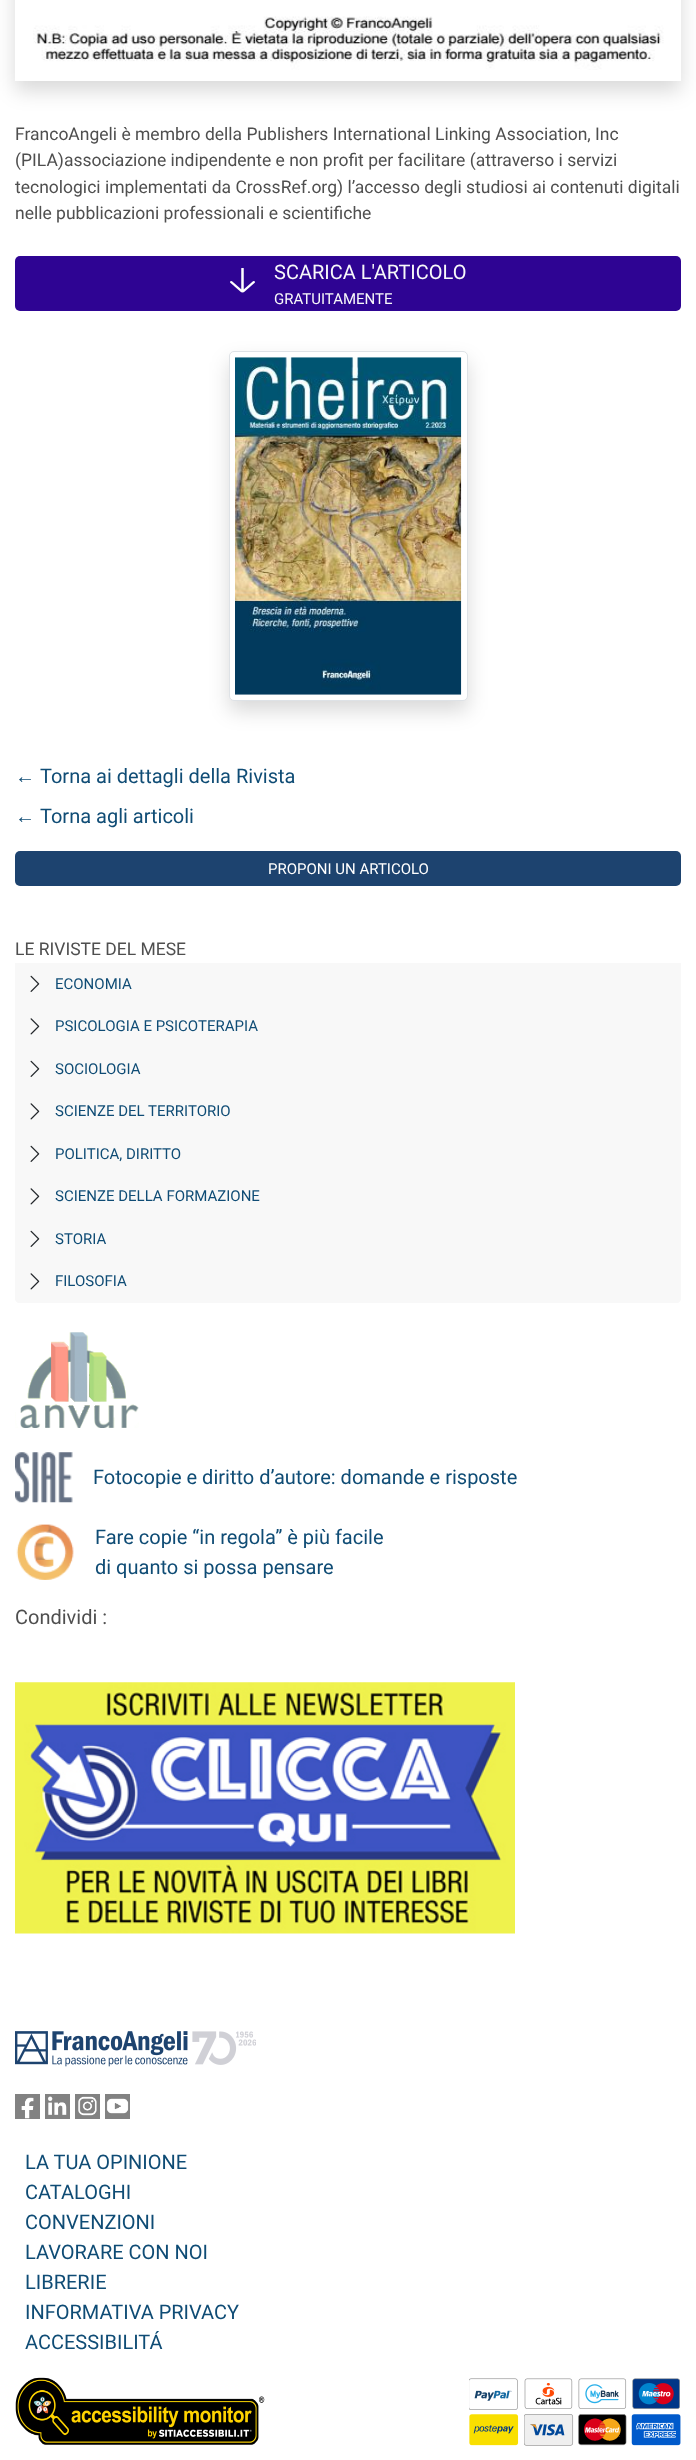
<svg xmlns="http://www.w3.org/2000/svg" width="696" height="2460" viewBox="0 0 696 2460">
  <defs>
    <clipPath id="clip1"><path d="M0 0H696V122H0ZM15-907H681V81H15Z" clip-rule="evenodd"/></clipPath>
  </defs>
  <rect width="100%" height="100%" fill="rgb(255,255,255)"/>
  <g clip-path="url(#clip1)">
    <rect x="15" y="-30" width="666" height="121" fill="rgba(0,0,0,0.15)" filter="blur(10px)"/>
  </g>
  <image x="33" y="16" width="631" height="54" href="pic1.png"/>
  <g font-family="Roboto" font-size="17.5" fill="rgb(79,79,79)">
    <text>
      <tspan x="15" y="140">FrancoAngeli è membro della Publishers International Linking Association, Inc</tspan>
      <tspan x="15" y="166">(PILA)associazione indipendente e non profit per facilitare (attraverso i servizi</tspan>
      <tspan x="15" y="193">tecnologici implementati da CrossRef.org) l’accesso degli studiosi ai contenuti digitali</tspan>
      <tspan x="15" y="219">nelle pubblicazioni professionali e scientifiche</tspan>
    </text>
  </g>
  <rect x="15" y="256" width="666" height="55" rx="5" fill="rgb(46,4,147)"/>
  <image x="230" y="268" width="25" height="25" href="pic2.png"/>
  <text x="274" y="279" font-family="Roboto" font-size="20" fill="rgb(248,249,250)">SCARICA L'ARTICOLO</text>
  <text x="274" y="304" font-family="Roboto" font-size="15" fill="rgb(248,249,250)">GRATUITAMENTE</text>
  <rect x="229" y="361" width="239" height="350" rx="5" fill="rgba(0,0,0,0.15)" filter="blur(10px)"/>
  <rect x="229.5" y="351.5" width="238" height="349" rx="4.5" fill="rgb(255,255,255)" stroke="rgb(222,226,230)"/>
  <image x="235" y="357" width="227" height="338" href="pic3.png"/>
  <text x="15" y="783" font-family="Liberation Sans" font-size="20" fill="rgb(15,76,117)">←</text>
  <text x="40" y="783" font-family="Roboto" font-size="20" fill="rgb(15,76,117)">Torna ai dettagli della Rivista</text>
  <text x="15" y="823" font-family="Liberation Sans" font-size="20" fill="rgb(15,76,117)">←</text>
  <text x="40" y="823" font-family="Roboto" font-size="20" fill="rgb(15,76,117)">Torna agli articoli</text>
  <rect x="15" y="851" width="666" height="35" rx="5" fill="rgb(29,67,111)"/>
  <text x="268" y="874" font-family="Roboto" font-size="15" fill="rgb(255,255,255)">PROPONI UN ARTICOLO</text>
  <text x="15" y="955" font-family="Roboto" font-size="17.5" fill="rgb(79,79,79)">LE RIVISTE DEL MESE</text>
  <rect x="15" y="963" width="666" height="297" fill="rgb(248,248,248)"/>
  <image x="30" y="975" width="10" height="17" href="pic4.png"/>
  <text x="55" y="989" font-family="Roboto" font-size="15" fill="rgb(15,76,117)">ECONOMIA</text>
  <image x="30" y="1018" width="10" height="17" href="pic5.png"/>
  <text x="55" y="1031" font-family="Roboto" font-size="15" fill="rgb(15,76,117)">PSICOLOGIA E PSICOTERAPIA</text>
  <image x="30" y="1060" width="10" height="17" href="pic4.png"/>
  <text x="55" y="1074" font-family="Roboto" font-size="15" fill="rgb(15,76,117)">SOCIOLOGIA</text>
  <image x="30" y="1103" width="10" height="17" href="pic5.png"/>
  <text x="55" y="1116" font-family="Roboto" font-size="15" fill="rgb(15,76,117)">SCIENZE DEL TERRITORIO</text>
  <image x="30" y="1145" width="10" height="17" href="pic4.png"/>
  <text x="55" y="1159" font-family="Roboto" font-size="15" fill="rgb(15,76,117)">POLITICA, DIRITTO</text>
  <image x="30" y="1188" width="10" height="17" href="pic5.png"/>
  <text x="55" y="1201" font-family="Roboto" font-size="15" fill="rgb(15,76,117)">SCIENZE DELLA FORMAZIONE</text>
  <image x="30" y="1230" width="10" height="17" href="pic4.png"/>
  <text x="55" y="1244" font-family="Roboto" font-size="15" fill="rgb(15,76,117)">STORIA</text>
  <path d="M15 1260H681V1299C681 1301 679 1303 677 1303H19C17 1303 15 1301 15 1299Z" fill="rgb(248,248,248)"/>
  <image x="30" y="1273" width="10" height="17" href="pic5.png"/>
  <text x="55" y="1286" font-family="Roboto" font-size="15" fill="rgb(15,76,117)">FILOSOFIA</text>
  <image x="15" y="1332" width="124" height="96" href="pic6.png"/>
  <image x="15" y="1452" width="58" height="51" href="pic7.png"/>
  <text x="93" y="1484" font-family="Roboto" font-size="20" fill="rgb(15,76,117)">Fotocopie e diritto d’autore: domande e risposte</text>
  <image x="16" y="1524" width="58" height="56" href="pic8.png"/>
  <g font-family="Roboto" font-size="20" fill="rgb(15,76,117)">
    <text>
      <tspan x="95" y="1544">Fare copie “in regola” è più facile</tspan>
      <tspan x="95" y="1574">di quanto si possa pensare</tspan>
    </text>
  </g>
  <text x="15" y="1624" font-family="Roboto" font-size="20" fill="rgb(79,79,79)">Condividi :</text>
  <image x="15" y="1682" width="500" height="252" href="pic9.png"/>
  <image x="15" y="2031" width="241" height="36" href="pic10.png"/>
  <rect x="15" y="2094" width="25" height="25" fill="rgb(130,130,130)"/>
  <image x="21" y="2097" width="13" height="22" href="pic11.png"/>
  <rect x="45" y="2094" width="25" height="25" fill="rgb(130,130,130)"/>
  <image x="48" y="2096" width="19" height="19" href="pic12.png"/>
  <rect x="75" y="2094" width="25" height="25" fill="rgb(130,130,130)"/>
  <image x="78" y="2096" width="19" height="20" href="pic13.png"/>
  <rect x="105" y="2094" width="25" height="25" fill="rgb(130,130,130)"/>
  <image x="106" y="2098" width="23" height="16" href="pic14.png"/>
  <g font-family="Roboto" font-size="20" fill="rgb(15,76,117)">
    <text>
      <tspan x="25" y="2169">LA TUA OPINIONE</tspan>
      <tspan x="25" y="2199">CATALOGHI</tspan>
      <tspan x="25" y="2229">CONVENZIONI</tspan>
      <tspan x="25" y="2259">LAVORARE CON NOI</tspan>
      <tspan x="25" y="2289">LIBRERIE</tspan>
      <tspan x="25" y="2319">INFORMATIVA PRIVACY</tspan>
      <tspan x="25" y="2349">ACCESSIBILITÁ</tspan>
    </text>
  </g>
  <image x="15" y="2377" width="250" height="68" href="pic15.png"/>
  <image x="469" y="2378" width="49" height="32" href="pic16.png"/>
  <image x="524" y="2378" width="49" height="31" href="pic17.png"/>
  <image x="578" y="2378" width="49" height="31" href="pic18.png"/>
  <image x="632" y="2378" width="48" height="31" href="pic19.png"/>
  <image x="469" y="2414" width="50" height="32" href="pic20.png"/>
  <image x="524" y="2414" width="50" height="32" href="pic21.png"/>
  <image x="578" y="2414" width="49" height="32" href="pic22.png"/>
  <image x="631" y="2414" width="50" height="32" href="pic23.png"/>
</svg>
